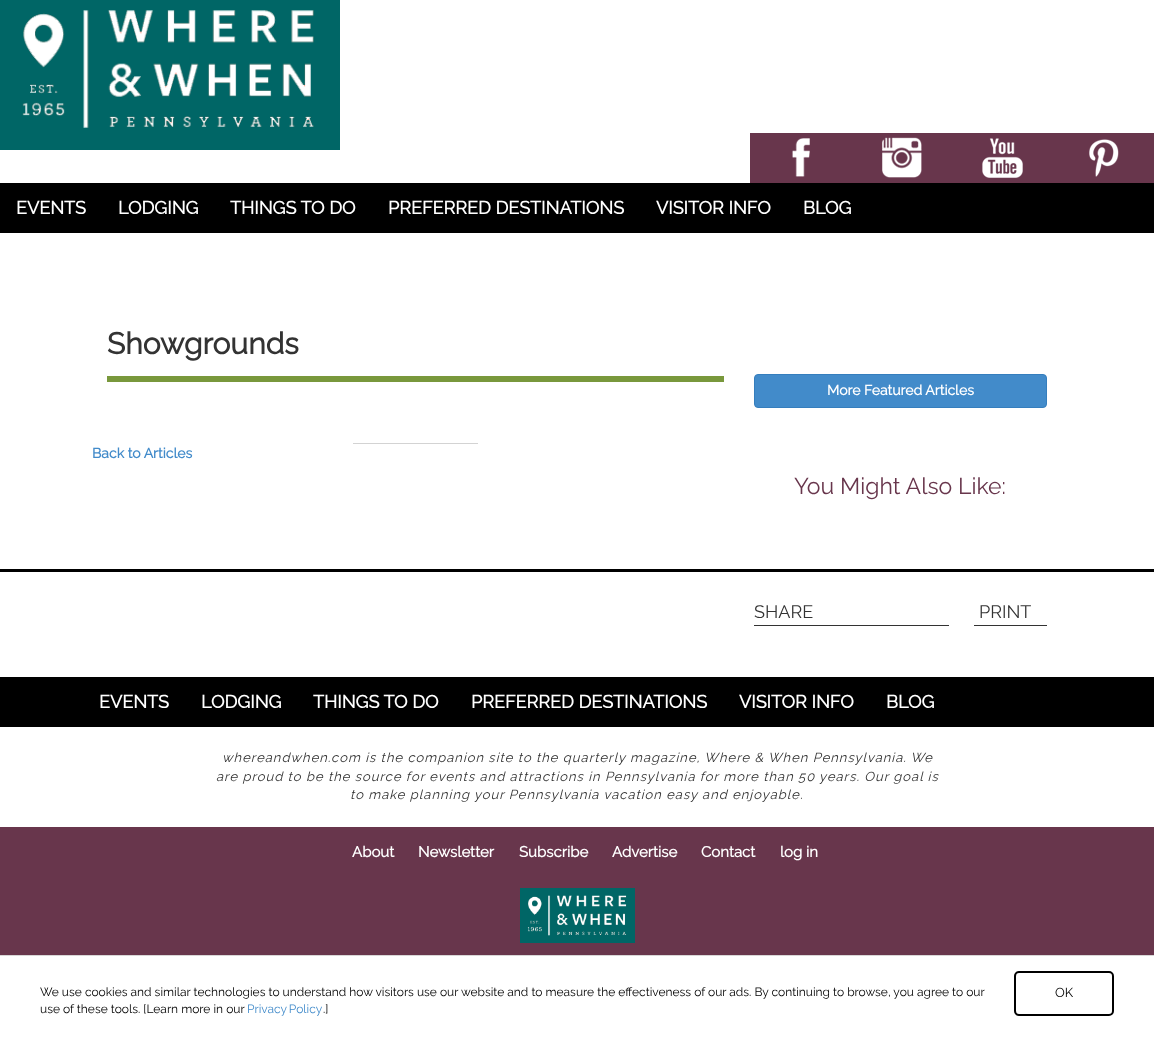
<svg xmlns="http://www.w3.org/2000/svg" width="1154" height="1043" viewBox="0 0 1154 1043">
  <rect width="100%" height="100%" fill="rgb(255,255,255)"/>
  <image x="0" y="0" width="340" height="150" href="pic1.png"/>
  <rect x="750" y="133" width="404" height="50" fill="rgb(104,54,76)"/>
  <image x="792" y="138" width="18" height="39" href="pic2.png"/>
  <image x="882" y="137" width="40" height="41" href="pic3.png"/>
  <image x="982" y="138" width="41" height="40" href="pic4.png"/>
  <image x="1089" y="139" width="30" height="38" href="pic5.png"/>
  <rect x="0" y="183" width="1154" height="50" fill="rgb(0,0,0)"/>
  <g font-family="Raleway" font-size="18" font-weight="bold" fill="rgb(255,255,255)">
    <text x="16" y="214">EVENTS</text>
    <text x="118" y="214">LODGING</text>
    <text x="230" y="214">THINGS TO DO</text>
    <text x="388" y="214">PREFERRED DESTINATIONS</text>
    <text x="656" y="214">VISITOR INFO</text>
    <text x="803" y="214">BLOG</text>
  </g>
  <rect x="107" y="376" width="617" height="6" fill="rgb(121,152,60)"/>
  <text x="107" y="354" font-family="Raleway" font-size="30" font-weight="bold" fill="rgb(51,51,51)">Showgrounds</text>
  <rect x="353" y="443" width="125" height="1" fill="rgb(211,211,211)"/>
  <text x="92" y="458" font-family="Raleway" font-size="14" font-weight="bold" fill="rgb(66,139,202)">Back to Articles</text>
  <rect x="754.5" y="374.5" width="292" height="33" rx="3.5" fill="rgb(66,139,202)" stroke="rgb(53,126,189)"/>
  <text x="827" y="395" font-family="Raleway" font-size="14" font-weight="bold" fill="rgb(255,255,255)">More Featured Articles</text>
  <text x="794" y="494" font-family="Raleway" font-size="23" font-weight="100" fill="rgb(104,54,76)">You Might Also Like:</text>
  <rect x="0" y="569" width="1154" height="3" fill="rgb(0,0,0)"/>
  <rect x="754" y="625" width="195" height="1" fill="rgb(51,51,51)"/>
  <text x="754" y="618" font-family="Raleway" font-size="18" font-weight="100" fill="rgb(51,51,51)">SHARE</text>
  <rect x="974" y="625" width="73" height="1" fill="rgb(51,51,51)"/>
  <text x="979" y="618" font-family="Raleway" font-size="18" font-weight="100" fill="rgb(51,51,51)">PRINT</text>
  <rect x="0" y="677" width="1154" height="50" fill="rgb(0,0,0)"/>
  <g font-family="Raleway" font-size="18" font-weight="bold" fill="rgb(255,255,255)">
    <text x="99" y="708">EVENTS</text>
    <text x="201" y="708">LODGING</text>
    <text x="313" y="708">THINGS TO DO</text>
    <text x="471" y="708">PREFERRED DESTINATIONS</text>
    <text x="739" y="708">VISITOR INFO</text>
    <text x="886" y="708">BLOG</text>
  </g>
  <g font-family="Raleway" font-size="13" font-weight="100" font-style="italic" letter-spacing="1" fill="rgb(51,51,51)">
    <text x="222" y="762">whereandwhen.com is the companion site to the quarterly magazine, Where &amp; When Pennsylvania. We</text>
    <text x="216" y="781">are proud to be the source for events and attractions in Pennsylvania for more than 50 years. Our goal is</text>
    <text x="350" y="799">to make planning your Pennsylvania vacation easy and enjoyable.</text>
  </g>
  <rect x="0" y="827" width="1154" height="128" fill="rgb(104,54,76)"/>
  <g font-family="Raleway" font-size="15" font-weight="bold" fill="rgb(255,255,255)">
    <text x="352" y="857">About</text>
    <text x="418" y="857">Newsletter</text>
    <text x="519" y="857">Subscribe</text>
    <text x="612" y="857">Advertise</text>
    <text x="701" y="857">Contact</text>
    <text x="780" y="857">log in</text>
  </g>
  <image x="520" y="888" width="115" height="55" href="pic6.png"/>
  <rect x="0" y="955" width="1154" height="1" fill="rgb(216,214,214)"/>
  <g font-family="Raleway" font-size="12" font-weight="100" fill="rgb(0,0,0)">
    <text>
      <tspan x="40" y="996">We use cookies and similar technologies to understand how visitors use our website and to measure the effectiveness of our ads. By continuing to browse, you agree to our</tspan>
      <tspan x="40" y="1013">use of these tools. [Learn more in our</tspan>
    </text>
  </g>
  <text x="247" y="1013" word-spacing="-1" font-family="Raleway" font-size="12" font-weight="100" fill="rgb(66,139,202)">Privacy Policy</text>
  <text x="323" y="1013" font-family="Raleway" font-size="12" font-weight="100" fill="rgb(0,0,0)">.]</text>
  <rect x="1015" y="972" width="98" height="43" rx="4" fill="none" stroke="rgb(0,0,0)" stroke-width="2"/>
  <text x="1055" y="997" font-family="Raleway" font-size="13" font-weight="100" fill="rgb(0,0,0)">OK</text>
</svg>
